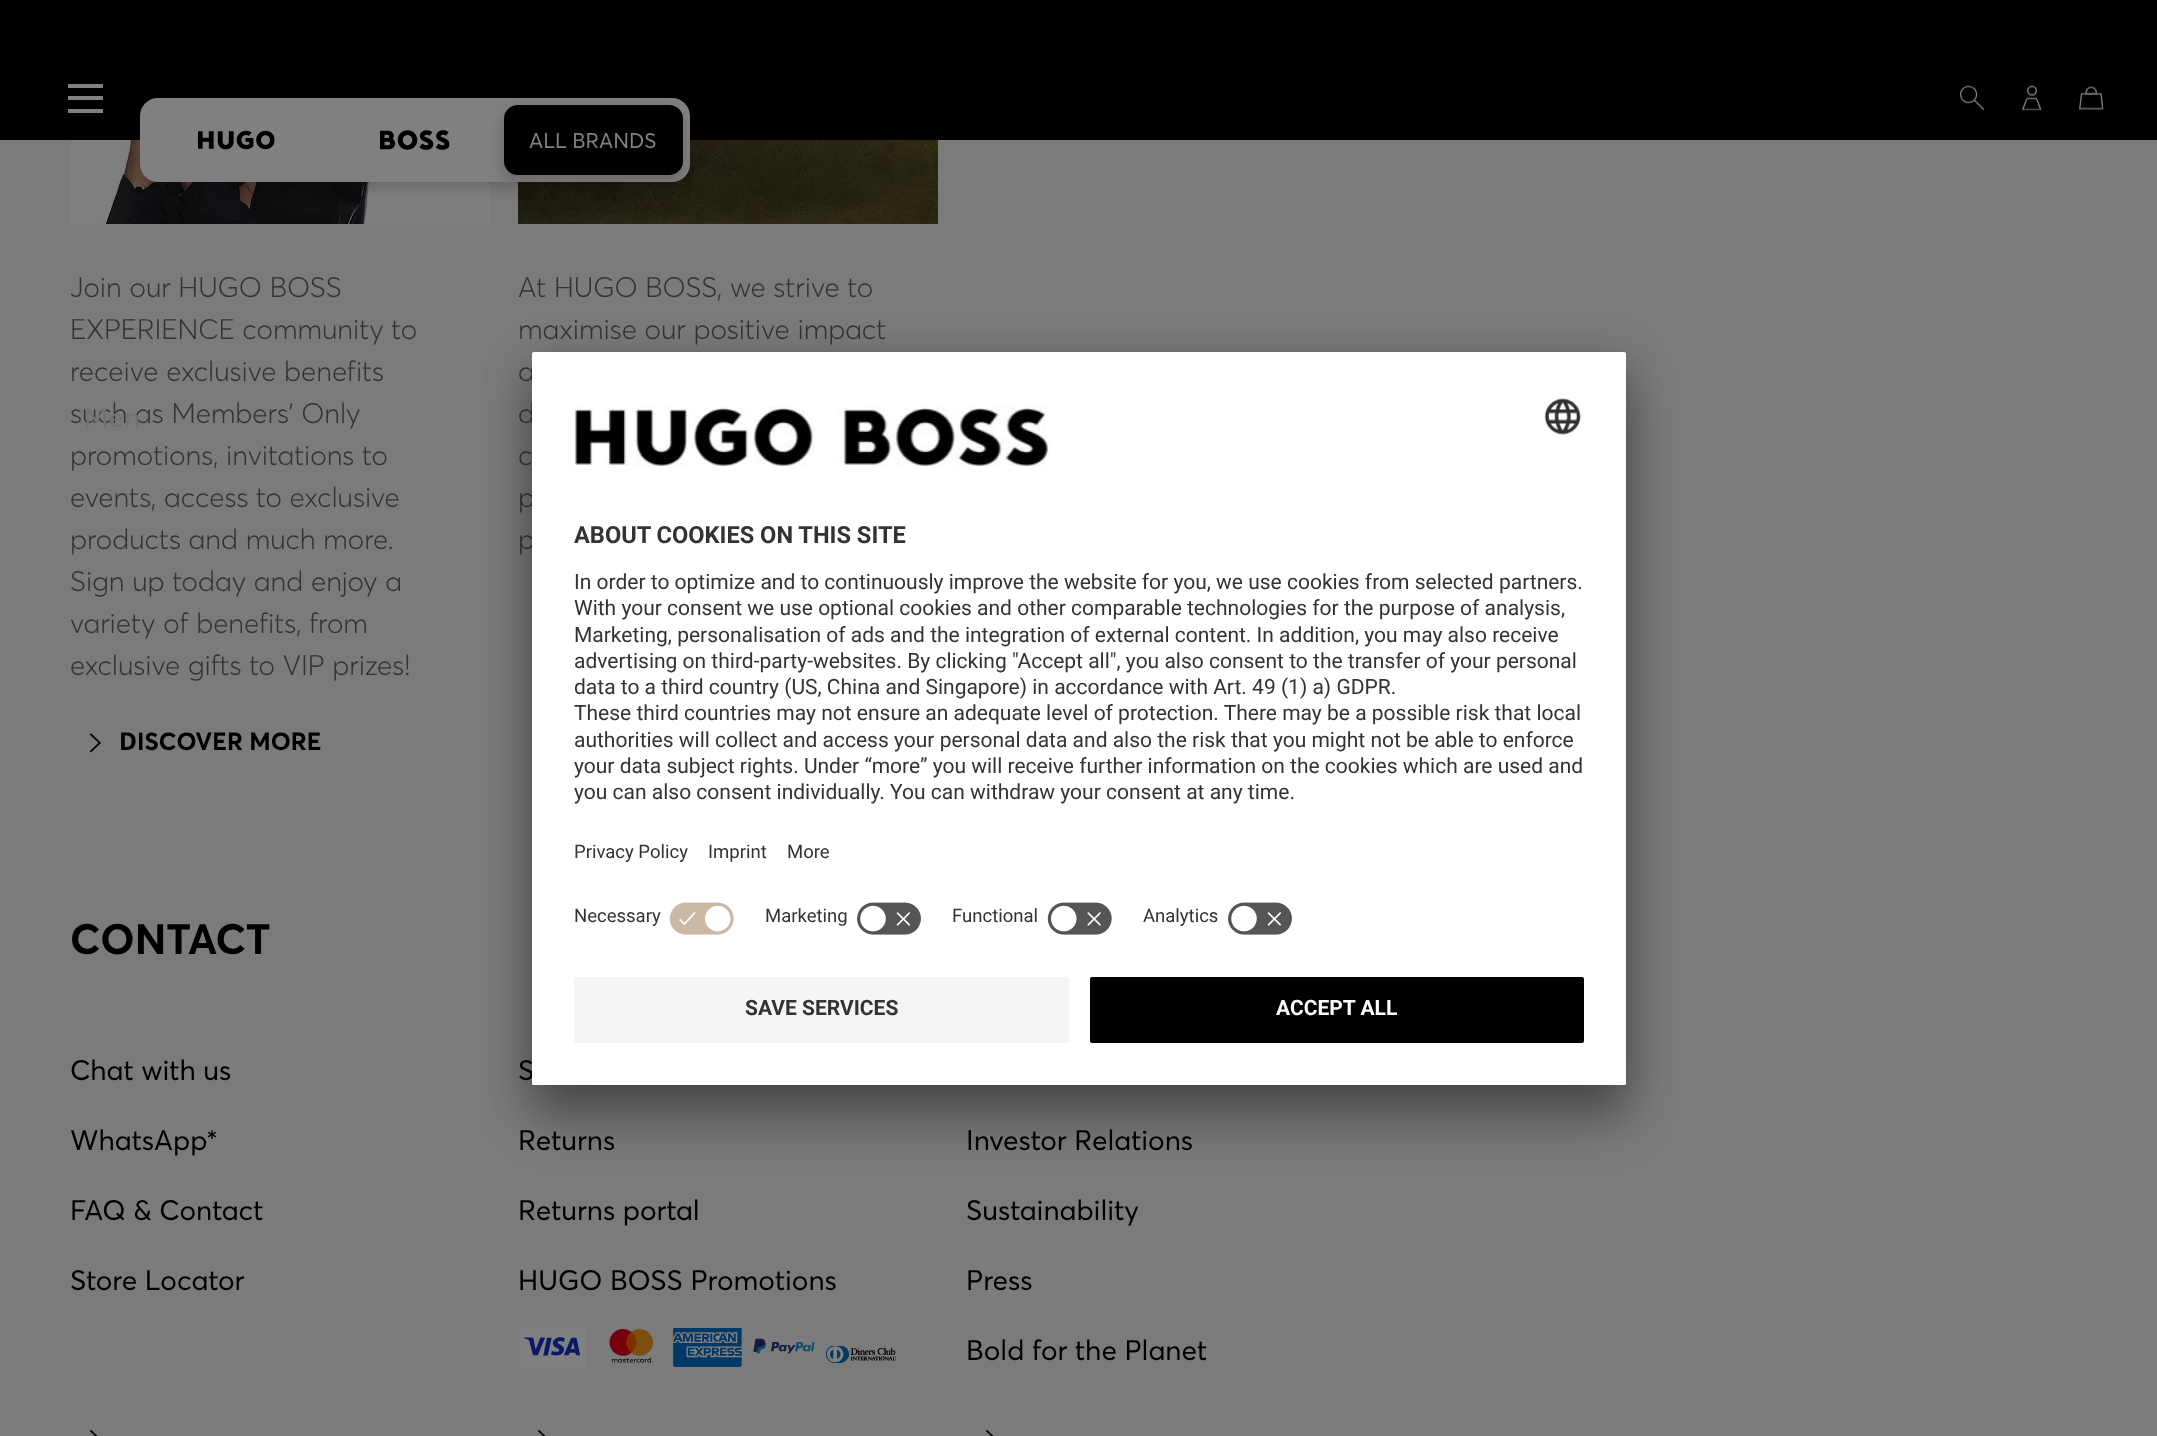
<svg xmlns="http://www.w3.org/2000/svg" width="2157" height="1436" viewBox="0 0 2157 1436">
  <defs>
    <clipPath id="clip1"><rect x="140" y="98" width="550" height="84" rx="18"/></clipPath>
  </defs>
  <rect width="100%" height="100%" fill="rgb(123,123,123)"/>
  <image x="70" y="140" width="420" height="84" href="pic3.png"/>
  <image x="518" y="140" width="420" height="84" href="pic5.png"/>
  <rect x="0" y="0" width="2157" height="140" fill="rgb(0,0,0)"/>
  <rect x="138" y="102" width="553" height="87" rx="19" fill="rgba(0,0,0,0.16)" filter="blur(6px)"/>
  <rect x="140" y="98" width="550" height="84" rx="18" fill="rgb(128,128,128)"/>
  <g clip-path="url(#clip1)">
    <rect x="502" y="109" width="182" height="73" rx="16" fill="rgba(0,0,0,0.16)" filter="blur(6px)"/>
  </g>
  <rect x="504" y="105" width="179" height="70" rx="14" fill="rgb(0,0,0)"/>
  <image x="197" y="130" width="78" height="20" href="pic1.png"/>
  <image x="380" y="130" width="70" height="20" href="pic2.png"/>
  <text x="529" y="148" font-family="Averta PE" font-size="21" fill="rgb(128,128,128)">ALL BRANDS</text>
  <g font-family="Averta PE" font-size="28" font-weight="300" fill="rgb(51,51,51)">
    <text>
      <tspan x="70" y="297">Join our HUGO BOSS</tspan>
      <tspan x="70" y="339">EXPERIENCE community to</tspan>
      <tspan x="70" y="381">receive exclusive benefits</tspan>
      <tspan x="70" y="423">such as Members’ Only</tspan>
      <tspan x="70" y="465">promotions, invitations to</tspan>
      <tspan x="70" y="507">events, access to exclusive</tspan>
      <tspan x="70" y="549">products and much more.</tspan>
      <tspan x="70" y="591">Sign up today and enjoy a</tspan>
      <tspan x="70" y="633">variety of benefits, from</tspan>
      <tspan x="70" y="675">exclusive gifts to VIP prizes!</tspan>
    </text>
  </g>
  <image x="89" y="733" width="12" height="20" href="pic4.png"/>
  <text x="119" y="750" font-family="Noto Sans" font-size="24.5" font-weight="bold" fill="rgb(0,0,0)">D</text>
  <text x="137" y="750" font-family="Averta PE" font-size="24.5" font-weight="bold" fill="rgb(0,0,0)">ISCOVER MORE</text>
  <g font-family="Averta PE" font-size="28" font-weight="300" fill="rgb(51,51,51)">
    <text>
      <tspan x="518" y="297">At HUGO BOSS, we strive to</tspan>
      <tspan x="518" y="339">maximise our positive impact</tspan>
      <tspan x="518" y="381">a</tspan>
      <tspan x="518" y="423">d</tspan>
      <tspan x="518" y="465">c</tspan>
      <tspan x="518" y="507">p</tspan>
      <tspan x="518" y="549">p</tspan>
    </text>
  </g>
  <text x="70" y="954" font-family="Averta PE" font-size="42" font-weight="bold" fill="rgb(0,0,0)">CONTACT</text>
  <g font-family="Averta PE" font-size="28" fill="rgb(0,0,0)">
    <text x="70" y="1080">Chat with us</text>
    <text x="70" y="1150">WhatsApp*</text>
    <text x="70" y="1220">FAQ &amp; Contact</text>
    <text x="70" y="1290">Store Locator</text>
  </g>
  <image x="89" y="1430" width="9" height="6" href="pic6.png"/>
  <g font-family="Averta PE" font-size="28" fill="rgb(0,0,0)">
    <text x="518" y="1080">S</text>
    <text x="518" y="1150">Returns</text>
    <text x="518" y="1220">Returns portal</text>
    <text x="518" y="1290">HUGO BOSS Promotions</text>
  </g>
  <image x="520" y="1328" width="66" height="40" href="pic7.png"/>
  <image x="609" y="1329" width="45" height="34" href="pic8.png"/>
  <image x="673" y="1328" width="69" height="39" href="pic9.png"/>
  <image x="753" y="1338" width="62" height="16" href="pic10.png"/>
  <image x="826" y="1346" width="70" height="17" href="pic11.png"/>
  <image x="537" y="1430" width="9" height="6" href="pic6.png"/>
  <g font-family="Averta PE" font-size="28" fill="rgb(0,0,0)">
    <text x="966" y="1150">Investor Relations</text>
    <text x="966" y="1220">Sustainability</text>
    <text x="966" y="1290">Press</text>
    <text x="966" y="1360">Bold for the Planet</text>
  </g>
  <image x="985" y="1430" width="9" height="6" href="pic6.png"/>
  <rect x="68" y="96" width="35" height="4" fill="rgb(128,128,128)"/>
  <rect x="68" y="84" width="35" height="4" fill="rgb(128,128,128)"/>
  <rect x="68" y="109" width="35" height="4" fill="rgb(128,128,128)"/>
  <image x="1960" y="85" width="25" height="26" href="pic12.png"/>
  <image x="2022" y="85" width="20" height="26" href="pic13.png"/>
  <image x="2079" y="86" width="25" height="24" href="pic14.png"/>
  <text x="84" y="427" font-family="Averta PE" font-size="28" fill="rgb(114,114,114)">Men</text>
  <rect x="532" y="387" width="1094" height="733" rx="2" fill="rgba(0,0,0,0.3)" filter="blur(24.5px)"/>
  <rect x="532" y="361" width="1094" height="733" rx="2" fill="rgba(0,0,0,0.22)" filter="blur(23px)"/>
  <rect x="532" y="352" width="1094" height="733" rx="2" fill="rgb(255,255,255)"/>
  <image x="574" y="406" width="478" height="60" href="pic15.png"/>
  <image x="1544" y="398" width="37" height="37" href="pic16.png"/>
  <text x="574" y="543" font-family="Roboto" font-size="23.6" font-weight="bold" fill="rgb(51,51,51)">ABOUT COOKIES ON THIS SITE</text>
  <g font-family="Roboto" font-size="21" fill="rgb(51,51,51)">
    <text>
      <tspan x="574" y="589">In order to optimize and to continuously improve the website for you, we use cookies from selected partners.</tspan>
      <tspan x="574" y="615">With your consent we use optional cookies and other comparable technologies for the purpose of analysis,</tspan>
      <tspan x="574" y="642">Marketing, personalisation of ads and the integration of external content. In addition, you may also receive</tspan>
      <tspan x="574" y="668">advertising on third-party-websites. By clicking "Accept all", you also consent to the transfer of your personal</tspan>
      <tspan x="574" y="694">data to a third country (US, China and Singapore) in accordance with Art. 49 (1) a) GDPR.</tspan>
      <tspan x="574" y="720">These third countries may not ensure an adequate level of protection. There may be a possible risk that local</tspan>
      <tspan x="574" y="747">authorities will collect and access your personal data and also the risk that you might not be able to enforce</tspan>
      <tspan x="574" y="773">your data subject rights. Under “more” you will receive further information on the cookies which are used and</tspan>
      <tspan x="574" y="799">you can also consent individually. You can withdraw your consent at any time.</tspan>
    </text>
  </g>
  <g font-family="Roboto" font-size="18.5" fill="rgb(51,51,51)">
    <text x="574" y="858">Privacy Policy</text>
    <text x="708" y="858">Imprint</text>
    <text x="787" y="858">More</text>
    <text x="574" y="922">Necessary</text>
  </g>
  <image x="669" y="902" width="65" height="33" href="pic17.png"/>
  <text x="765" y="922" font-family="Roboto" font-size="18.5" fill="rgb(51,51,51)">Marketing</text>
  <image x="857" y="902" width="64" height="33" href="pic18.png"/>
  <text x="952" y="922" font-family="Roboto" font-size="18.5" fill="rgb(51,51,51)">Functional</text>
  <image x="1047" y="902" width="65" height="33" href="pic19.png"/>
  <text x="1143" y="922" font-family="Roboto" font-size="18.5" fill="rgb(51,51,51)">Analytics</text>
  <image x="1228" y="902" width="64" height="33" href="pic18.png"/>
  <path d="M532 963H1626V1083C1626 1084 1625 1085 1624 1085H534C533 1085 532 1084 532 1083Z" fill="rgb(255,255,255)"/>
  <rect x="574" y="977" width="495" height="66" rx="2" fill="rgb(245,245,245)"/>
  <text x="745" y="1015" font-family="Roboto" font-size="21" font-weight="bold" fill="rgb(51,51,51)">SAVE SERVICES</text>
  <rect x="1090" y="977" width="494" height="66" rx="2" fill="rgb(0,0,0)"/>
  <text x="1276" y="1015" font-family="Roboto" font-size="21" font-weight="bold" fill="rgb(250,250,250)">ACCEPT ALL</text>
</svg>
